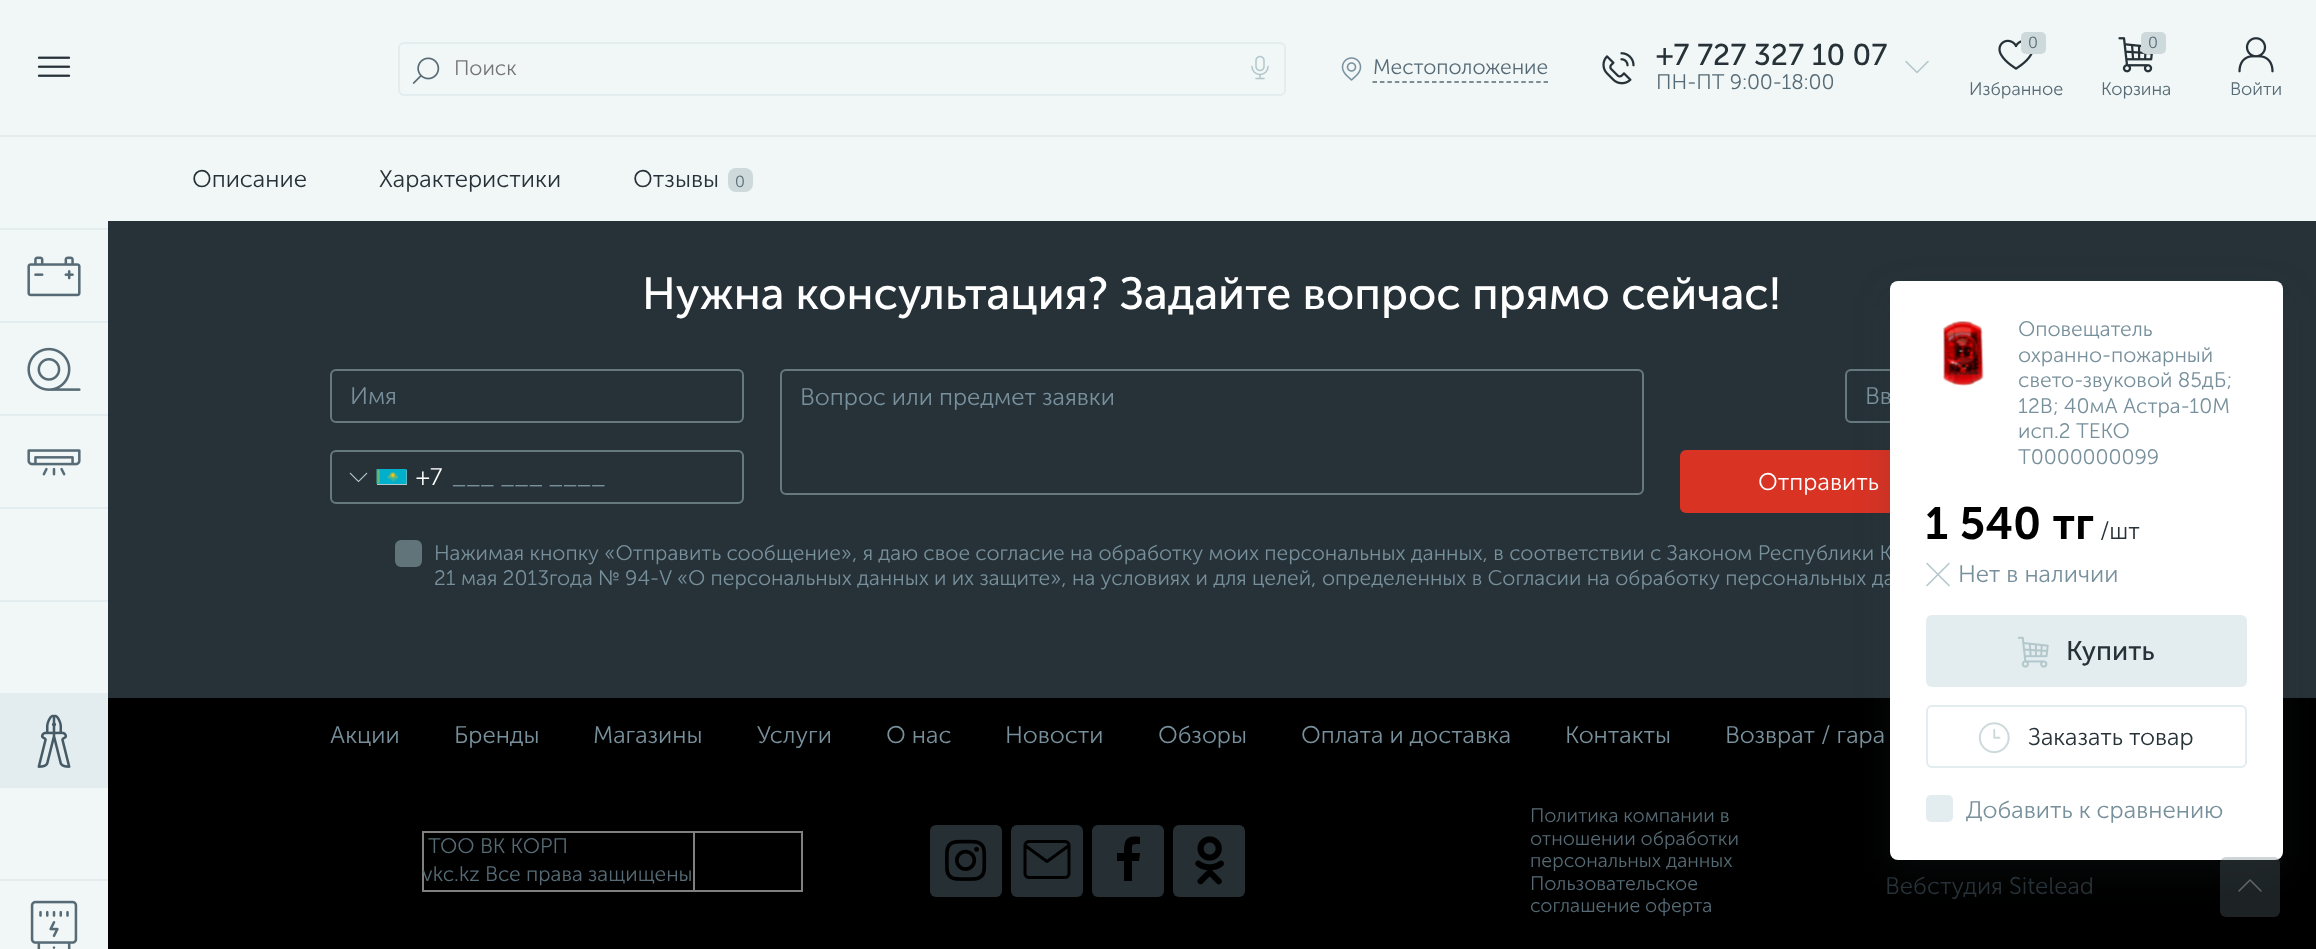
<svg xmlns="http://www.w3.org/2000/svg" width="2316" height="949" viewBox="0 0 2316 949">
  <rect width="100%" height="100%" fill="rgb(38,50,56)"/>
  <rect x="0" y="0" width="2316" height="135" fill="rgb(241,246,247)"/>
  <image x="37" y="56" width="34" height="21" href="pic1.png"/>
  <rect x="399" y="43" width="886" height="52" rx="5" fill="none" stroke="rgb(227,236,239)" stroke-width="2"/>
  <image x="412" y="57" width="28" height="27" href="pic2.png"/>
  <text x="454" y="75" font-family="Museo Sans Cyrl" font-size="21" font-weight="300" fill="rgb(117,117,117)">Поиск</text>
  <image x="1251" y="55" width="18" height="25" href="pic3.png"/>
  <image x="1341" y="57" width="21" height="24" href="pic4.png"/>
  <path d="M1372.5 82H1548" fill="none" stroke="rgb(86,107,117)" stroke-width="1.5" stroke-dasharray="4.5 2.94"/>
  <text x="1373" y="74" font-family="Museo Sans Cyrl" font-size="21" font-weight="300" fill="rgb(86,107,117)">Местоположение</text>
  <image x="1602" y="52" width="33" height="33" href="pic5.png"/>
  <text x="1656" y="65" font-family="Museo Sans Cyrl" font-size="30" fill="rgb(38,50,56)">+7 727 327 10 07</text>
  <text x="1656" y="89" font-family="Museo Sans Cyrl" font-size="21" font-weight="300" fill="rgb(86,107,117)">ПН-ПТ 9:00-18:00</text>
  <image x="1905" y="60" width="24" height="14" href="pic6.png"/>
  <image x="1998" y="39" width="35" height="31" href="pic7.png"/>
  <rect x="2021" y="32" width="25" height="22" rx="5" fill="rgb(206,217,219)"/>
  <text x="2028" y="48" font-family="Museo Sans Cyrl" font-size="16" font-weight="300" fill="rgb(86,107,117)">0</text>
  <text x="1969" y="95" font-family="Museo Sans Cyrl" font-size="18" font-weight="300" fill="rgb(86,107,117)">Избранное</text>
  <image x="2118" y="37" width="35" height="36" href="pic8.png"/>
  <rect x="2141" y="32" width="25" height="22" rx="5" fill="rgb(206,217,219)"/>
  <text x="2148" y="48" font-family="Museo Sans Cyrl" font-size="16" font-weight="300" fill="rgb(86,107,117)">0</text>
  <text x="2101" y="95" font-family="Museo Sans Cyrl" font-size="18" font-weight="300" fill="rgb(86,107,117)">Корзина</text>
  <image x="2238" y="37" width="36" height="36" href="pic9.png"/>
  <text x="2230" y="95" font-family="Museo Sans Cyrl" font-size="18" font-weight="300" fill="rgb(86,107,117)">Войти</text>
  <rect x="0" y="135" width="2316" height="2" fill="rgb(227,236,239)"/>
  <rect x="0" y="137" width="108" height="812" fill="rgb(241,246,247)"/>
  <rect x="0" y="228" width="108" height="2" fill="rgb(227,236,239)"/>
  <image x="27" y="256" width="54" height="41" href="pic10.png"/>
  <rect x="0" y="321" width="108" height="2" fill="rgb(227,236,239)"/>
  <image x="27" y="347" width="54" height="44" href="pic11.png"/>
  <rect x="0" y="414" width="108" height="2" fill="rgb(227,236,239)"/>
  <image x="27" y="449" width="54" height="27" href="pic12.png"/>
  <rect x="0" y="507" width="108" height="2" fill="rgb(227,236,239)"/>
  <rect x="0" y="600" width="108" height="2" fill="rgb(227,236,239)"/>
  <rect x="0" y="693" width="108" height="95" fill="rgb(227,236,239)"/>
  <image x="37" y="714" width="34" height="54" href="pic13.png"/>
  <rect x="0" y="879" width="108" height="2" fill="rgb(227,236,239)"/>
  <image x="30" y="900" width="48" height="49" href="pic14.png"/>
  <rect x="108" y="137" width="2208" height="84" fill="rgb(241,246,247)"/>
  <g font-family="Museo Sans Cyrl" font-size="24" font-weight="300" fill="rgb(38,50,56)">
    <text x="192" y="187">Описание</text>
    <text x="379" y="187">Характеристики</text>
    <text x="633" y="187">Отзывы</text>
  </g>
  <rect x="728" y="168" width="25" height="24" rx="8" fill="rgb(206,217,219)"/>
  <text x="735" y="187" font-family="Museo Sans Cyrl" font-size="16" font-weight="300" fill="rgb(86,107,117)">0</text>
  <rect x="1846" y="370" width="247" height="52" rx="5" fill="none" stroke="rgb(102,121,127)" stroke-width="2"/>
  <rect x="1680" y="450" width="414" height="63" rx="6" fill="rgb(217,51,36)"/>
  <rect x="108" y="698" width="2208" height="251" fill="rgb(0,0,0)"/>
  <rect x="1890" y="294" width="393" height="579" rx="8" fill="rgba(38,50,56,0.16)" filter="blur(18px)"/>
  <text x="1865" y="404" font-family="Museo Sans Cyrl" font-size="24" font-weight="300" fill="rgb(120,144,156)">Вв</text>
  <g font-family="Museo Sans Cyrl" font-size="21" font-weight="300" fill="rgb(120,144,156)">
    <text>
      <tspan x="434" y="560">Нажимая кнопку «Отправить сообщение», я даю свое согласие на обработку моих персональных данных, в соответствии с Законом Республики К</tspan>
      <tspan x="434" y="585">21 мая 2013года № 94-V «О персональных данных и их защите», на условиях и для целей, определенных в Согласии на обработку персональных да</tspan>
    </text>
  </g>
  <rect x="1890" y="281" width="393" height="579" rx="8" fill="rgb(255,255,255)"/>
  <image x="1942" y="321" width="42" height="65" href="pic15.png"/>
  <g font-family="Museo Sans Cyrl" font-size="21" font-weight="300" fill="rgb(120,144,156)">
    <text>
      <tspan x="2018" y="336">Оповещатель</tspan>
      <tspan x="2018" y="362">охранно-пожарный</tspan>
      <tspan x="2018" y="387">свето-звуковой 85дБ;</tspan>
      <tspan x="2018" y="413">12В; 40мА Астра-10М</tspan>
      <tspan x="2018" y="438">исп.2 ТЕКО</tspan>
      <tspan x="2018" y="464">Т0000000099</tspan>
    </text>
  </g>
  <text x="1925" y="539" font-family="Museo Sans Cyrl" font-size="45" font-weight="600" fill="rgb(0,0,0)">1 540 тг</text>
  <text x="2100" y="539" font-family="Museo Sans Cyrl" font-size="24" font-weight="300" fill="rgb(38,50,56)">/шт</text>
  <image x="1926" y="562" width="24" height="25" href="pic16.png"/>
  <text x="1958" y="582" font-family="Museo Sans Cyrl" font-size="24" font-weight="300" fill="rgb(120,144,156)">Нет в наличии</text>
  <rect x="1926" y="615" width="321" height="72" rx="6" fill="rgb(227,236,239)"/>
  <image x="2017" y="636" width="32" height="32" href="pic17.png"/>
  <text x="2066" y="660" font-family="Museo Sans Cyrl" font-size="27" fill="rgb(38,50,56)">Купить</text>
  <rect x="1927" y="706" width="319" height="61" rx="5" fill="none" stroke="rgb(227,236,239)" stroke-width="2"/>
  <image x="1978" y="722" width="32" height="32" href="pic18.png"/>
  <text x="2028" y="745" font-family="Museo Sans Cyrl" font-size="24" font-weight="300" fill="rgb(38,50,56)">Заказать товар</text>
  <rect x="1926" y="795" width="27" height="27" rx="5" fill="rgb(227,236,239)"/>
  <text x="1966" y="818" font-family="Museo Sans Cyrl" font-size="24" font-weight="300" fill="rgb(120,144,156)">Добавить к сравнению</text>
  <text x="642" y="309" font-family="Museo Sans Cyrl" font-size="45" fill="rgb(255,255,255)">Нужна консультация? Задайте вопрос прямо сейчас!</text>
  <rect x="331" y="370" width="412" height="52" rx="5" fill="none" stroke="rgb(102,121,127)" stroke-width="2"/>
  <text x="350" y="404" font-family="Museo Sans Cyrl" font-size="24" font-weight="300" fill="rgb(120,144,156)">Имя</text>
  <rect x="331" y="451" width="412" height="52" rx="5" fill="none" stroke="rgb(102,121,127)" stroke-width="2"/>
  <image x="349" y="472" width="19" height="10" href="pic19.png"/>
  <rect x="377" y="470" width="30" height="15" fill="rgb(178,199,203)"/>
  <image x="376" y="469" width="31" height="15" href="pic20.png"/>
  <text x="416" y="485" font-family="Museo Sans Cyrl" font-size="24" font-weight="300" fill="rgb(255,255,255)">+7</text>
  <text x="452" y="485" font-family="Museo Sans Cyrl" font-size="24" font-weight="300" fill="rgb(120,144,156)">___ ___ ____</text>
  <rect x="781" y="370" width="862" height="124" rx="5" fill="none" stroke="rgb(102,121,127)" stroke-width="2"/>
  <text x="800" y="405" font-family="Museo Sans Cyrl" font-size="24" font-weight="300" fill="rgb(120,144,156)">Вопрос или предмет заявки</text>
  <text x="1758" y="490" font-family="Museo Sans Cyrl" font-size="24" font-weight="300" fill="rgb(255,255,255)">Отправить</text>
  <rect x="395" y="540" width="27" height="27" rx="6" fill="rgb(97,116,122)"/>
  <g font-family="Museo Sans Cyrl" font-size="24" font-weight="300" fill="rgb(120,144,156)">
    <text x="330" y="743">Акции</text>
    <text x="454" y="743">Бренды</text>
    <text x="593" y="743">Магазины</text>
    <text x="757" y="743">Услуги</text>
    <text x="886" y="743">О нас</text>
    <text x="1005" y="743">Новости</text>
    <text x="1158" y="743">Обзоры</text>
    <text x="1301" y="743">Оплата и доставка</text>
    <text x="1565" y="743">Контакты</text>
    <text x="1725" y="743">Возврат / гара</text>
  </g>
  <rect x="422" y="831" width="381" height="2" fill="rgb(128,128,128)"/>
  <rect x="801" y="831" width="2" height="60" fill="rgb(128,128,128)"/>
  <rect x="422" y="890" width="381" height="2" fill="rgb(128,128,128)"/>
  <rect x="422" y="831" width="2" height="60" fill="rgb(128,128,128)"/>
  <g font-family="Museo Sans Cyrl" font-size="21" font-weight="300" fill="rgb(86,107,117)">
    <text x="428" y="853">ТОО ВК КОРП</text>
    <text x="422" y="881">vkc.kz Все права защищены</text>
  </g>
  <rect x="693" y="831" width="2" height="60" fill="rgb(128,128,128)"/>
  <rect x="930" y="825" width="72" height="72" rx="6" fill="rgb(38,47,52)"/>
  <image x="945" y="839" width="42" height="42" href="pic21.png"/>
  <rect x="1011" y="825" width="72" height="72" rx="6" fill="rgb(38,47,52)"/>
  <image x="1023" y="840" width="48" height="39" href="pic22.png"/>
  <rect x="1092" y="825" width="72" height="72" rx="6" fill="rgb(38,47,52)"/>
  <path d="M1140 837V844C1131 844 1132 844 1132 853H1140L1139 861H1132V881H1124V861H1117V853H1124C1124 840 1126 835 1140 837Z" fill="rgb(0,0,0)"/>
  <rect x="1173" y="825" width="72" height="72" rx="6" fill="rgb(38,47,52)"/>
  <image x="1195" y="836" width="29" height="49" href="pic23.png"/>
  <g font-family="Museo Sans Cyrl" font-size="19.5" font-weight="300" fill="rgb(86,107,117)">
    <text>
      <tspan x="1530" y="822">Политика компании в</tspan>
      <tspan x="1530" y="845">отношении обработки</tspan>
      <tspan x="1530" y="867">персональных данных</tspan>
      <tspan x="1530" y="890">Пользовательское</tspan>
      <tspan x="1530" y="912">соглашение оферта</tspan>
    </text>
  </g>
  <text x="1885" y="894" font-family="Museo Sans Cyrl" font-size="24" font-weight="300" fill="rgb(38,50,56)">Вебстудия Sitelead</text>
  <rect x="2220" y="857" width="60" height="60" rx="6" fill="rgba(97,116,122,0.3)"/>
  <image x="2238" y="879" width="24" height="13" href="pic24.png"/>
</svg>
